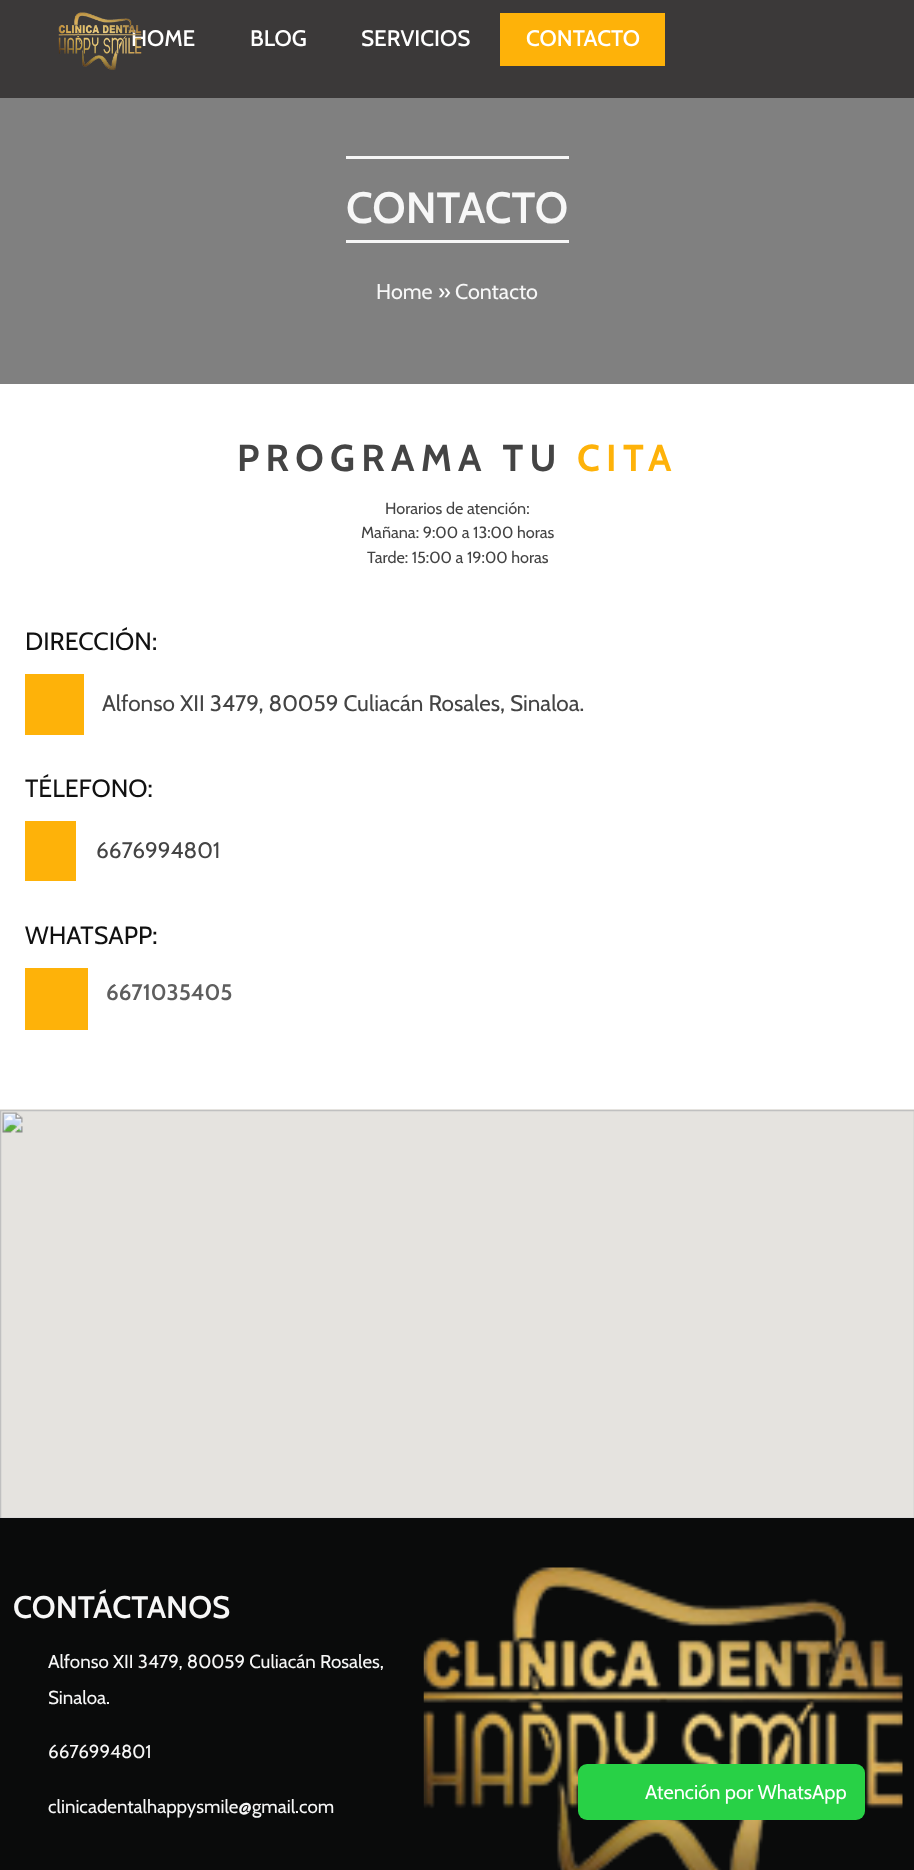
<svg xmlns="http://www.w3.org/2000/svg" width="914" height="1870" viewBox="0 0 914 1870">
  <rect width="100%" height="100%" fill="rgb(255,255,255)"/>
  <rect x="0" y="0" width="914" height="98" fill="rgb(59,57,57)"/>
  <text x="131" y="46" font-family="Cabin" font-size="22.5" font-weight="500" fill="rgb(255,255,255)">HOME</text>
  <image x="58" y="12" width="84" height="58" href="pic1.png"/>
  <g font-family="Cabin" font-size="22.5" font-weight="500" fill="rgb(255,255,255)">
    <text x="250" y="46">BLOG</text>
    <text x="361" y="46">SERVICIOS</text>
  </g>
  <rect x="500" y="13" width="165" height="53" fill="rgb(254,178,9)"/>
  <text x="526" y="46" font-family="Cabin" font-size="22.5" font-weight="500" fill="rgb(255,255,255)">CONTACTO</text>
  <rect x="0" y="98" width="914" height="286" fill="rgb(128,128,128)"/>
  <rect x="346" y="156" width="223" height="3" fill="rgb(246,246,246)"/>
  <text x="346" y="223" font-family="Cabin" font-size="43.75" font-weight="600" fill="rgb(247,247,247)">CONTACTO</text>
  <rect x="346" y="240" width="223" height="3" fill="rgb(246,246,246)"/>
  <text x="376" y="299" font-family="Cabin" font-size="21.5" fill="rgb(247,247,247)">Home</text>
  <text x="438" y="299" font-family="Cabin" font-size="21.5" fill="rgb(255,255,255)">»</text>
  <text x="455" y="299" font-family="Cabin" font-size="21.5" fill="rgb(247,247,247)">Contacto</text>
  <text x="237" y="471" font-family="Cabin" font-size="37.5" font-weight="bold" letter-spacing="6.25" fill="rgb(68,68,68)">PROGRAMA TU</text>
  <text x="577" y="471" font-family="Cabin" font-size="37.5" font-weight="bold" letter-spacing="6.25" fill="rgb(254,178,9)">CITA</text>
  <g font-family="Cabin" font-size="16.25" fill="rgb(68,68,68)">
    <text x="385" y="514">Horarios de atención:</text>
    <text x="361" y="538">Mañana: 9:00 a 13:00 horas</text>
    <text x="367" y="563">Tarde: 15:00 a 19:00 horas</text>
  </g>
  <text x="25" y="650" font-family="Cabin" font-size="25" fill="rgb(17,17,17)">DIRECCIÓN:</text>
  <rect x="25" y="674" width="59" height="61" fill="rgb(254,178,9)"/>
  <text x="102" y="711" font-family="Cabin" font-size="22.5" fill="rgb(68,68,68)">Alfonso XII 3479, 80059 Culiacán Rosales, Sinaloa.</text>
  <text x="25" y="797" font-family="Cabin" font-size="25" fill="rgb(17,17,17)">TÉLEFONO:</text>
  <rect x="25" y="821" width="51" height="60" fill="rgb(254,178,9)"/>
  <text x="96" y="858" font-family="Cabin" font-size="22.5" fill="rgb(68,68,68)">6676994801</text>
  <text x="25" y="944" font-family="Cabin" font-size="25" fill="rgb(17,17,17)">WHATSAPP:</text>
  <rect x="25" y="968" width="63" height="62" fill="rgb(254,178,9)"/>
  <text x="106" y="1000" font-family="Cabin" font-size="22.5" font-weight="600" fill="rgb(94,94,94)">6671035405</text>
  <image x="0" y="1109" width="914" height="409" href="pic2.png"/>
  <rect x="0" y="1518" width="914" height="352" fill="rgb(10,11,11)"/>
  <text x="13" y="1618" font-family="Cabin" font-size="31.25" font-weight="600" fill="rgb(247,247,247)">CONTÁCTANOS</text>
  <g font-family="Cabin" font-size="18.75" fill="rgb(247,247,247)">
    <text>
      <tspan x="48" y="1668">Alfonso XII 3479, 80059 Culiacán Rosales,</tspan>
      <tspan x="48" y="1704">Sinaloa.</tspan>
    </text>
    <text x="48" y="1758">6676994801</text>
    <text x="48" y="1813">clinicadentalhappysmile@gmail.com</text>
  </g>
  <image x="423" y="1567" width="480" height="303" href="pic3.png"/>
  <rect x="578" y="1764" width="287" height="56" rx="9" fill="rgb(40,209,70)"/>
  <text x="645" y="1799" font-family="Cabin" font-size="20" fill="rgb(255,255,255)">Atención por WhatsApp</text>
</svg>
